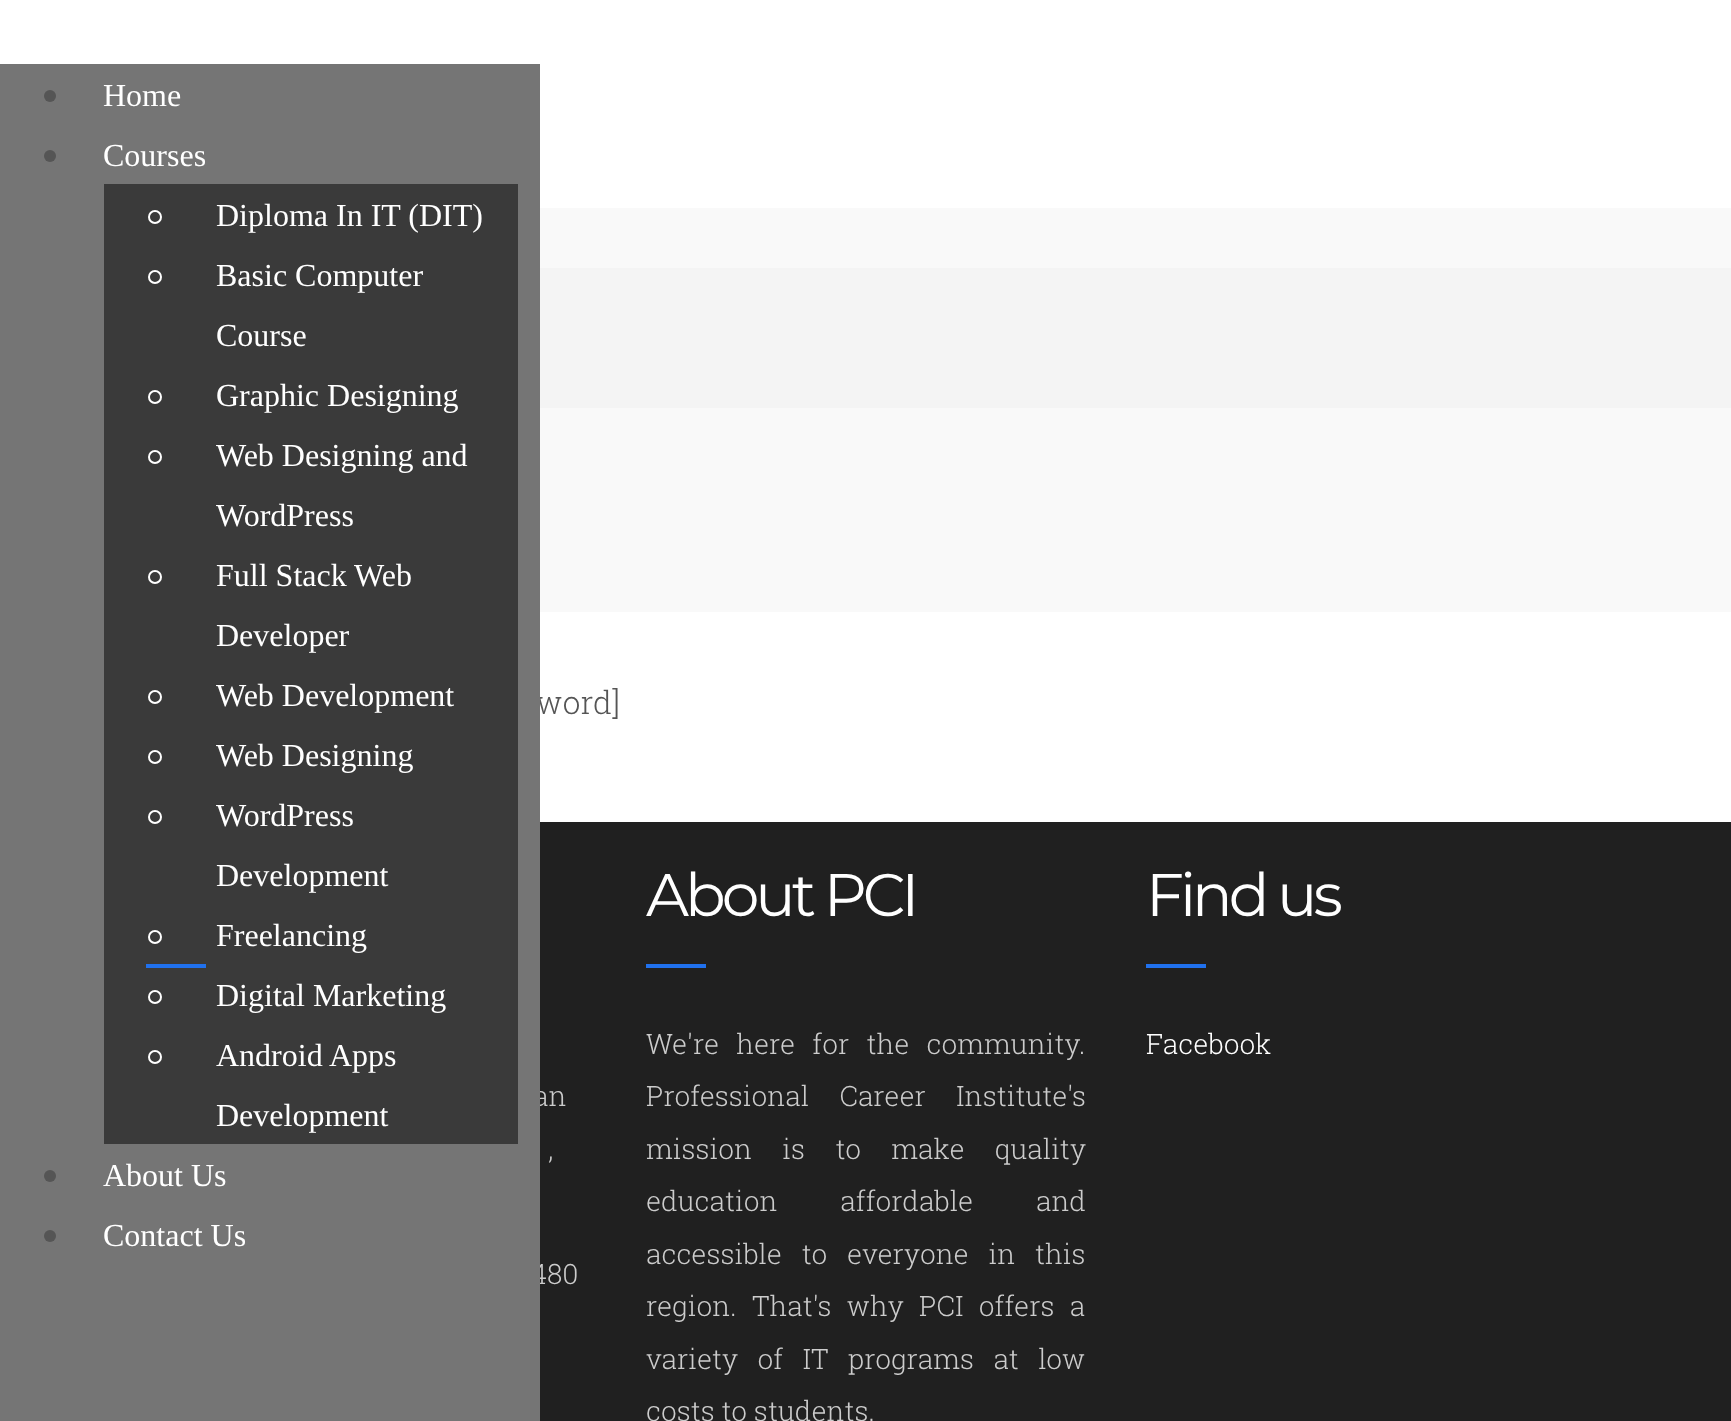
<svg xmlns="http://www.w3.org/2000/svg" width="1731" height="1421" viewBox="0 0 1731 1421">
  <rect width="100%" height="100%" fill="rgb(255,255,255)"/>
  <text x="536" y="714" font-family="Roboto Slab" font-size="32" font-weight="300" fill="rgb(85,85,85)">word]</text>
  <rect x="540" y="822" width="1191" height="599" fill="rgb(32,32,32)"/>
  <g font-family="Roboto Slab" font-size="28" font-weight="300" fill="rgb(204,204,204)">
    <text x="533" y="1106">an</text>
    <text x="531" y="1284">480</text>
  </g>
  <rect x="0" y="64" width="540" height="1357" fill="rgb(117,117,117)"/>
  <circle cx="50" cy="96" r="6" fill="rgb(85,85,85)"/>
  <text x="103" y="106" font-family="Liberation Serif" font-size="32" fill="rgb(255,255,255)">Home</text>
  <circle cx="50" cy="156" r="6" fill="rgb(85,85,85)"/>
  <text x="103" y="166" font-family="Liberation Serif" font-size="32" fill="rgb(255,255,255)">Courses</text>
  <rect x="104" y="184" width="414" height="960" fill="rgb(58,58,58)"/>
  <circle cx="155" cy="217" r="6" fill="none" stroke="rgb(255,255,255)" stroke-width="2"/>
  <text x="216" y="226" font-family="Liberation Serif" font-size="32" fill="rgb(255,255,255)">Diploma In IT (DIT)</text>
  <circle cx="155" cy="277" r="6" fill="none" stroke="rgb(255,255,255)" stroke-width="2"/>
  <g font-family="Liberation Serif" font-size="32" fill="rgb(255,255,255)">
    <text>
      <tspan x="216" y="286">Basic Computer</tspan>
      <tspan x="216" y="346">Course</tspan>
    </text>
  </g>
  <circle cx="155" cy="397" r="6" fill="none" stroke="rgb(255,255,255)" stroke-width="2"/>
  <text x="216" y="406" font-family="Liberation Serif" font-size="32" fill="rgb(255,255,255)">Graphic Designing</text>
  <circle cx="155" cy="457" r="6" fill="none" stroke="rgb(255,255,255)" stroke-width="2"/>
  <g font-family="Liberation Serif" font-size="32" fill="rgb(255,255,255)">
    <text>
      <tspan x="216" y="466">Web Designing and</tspan>
      <tspan x="216" y="526">WordPress</tspan>
    </text>
  </g>
  <circle cx="155" cy="577" r="6" fill="none" stroke="rgb(255,255,255)" stroke-width="2"/>
  <g font-family="Liberation Serif" font-size="32" fill="rgb(255,255,255)">
    <text>
      <tspan x="216" y="586">Full Stack Web</tspan>
      <tspan x="216" y="646">Developer</tspan>
    </text>
  </g>
  <circle cx="155" cy="697" r="6" fill="none" stroke="rgb(255,255,255)" stroke-width="2"/>
  <text x="216" y="706" font-family="Liberation Serif" font-size="32" fill="rgb(255,255,255)">Web Development</text>
  <circle cx="155" cy="757" r="6" fill="none" stroke="rgb(255,255,255)" stroke-width="2"/>
  <text x="216" y="766" font-family="Liberation Serif" font-size="32" fill="rgb(255,255,255)">Web Designing</text>
  <circle cx="155" cy="817" r="6" fill="none" stroke="rgb(255,255,255)" stroke-width="2"/>
  <g font-family="Liberation Serif" font-size="32" fill="rgb(255,255,255)">
    <text>
      <tspan x="216" y="826">WordPress</tspan>
      <tspan x="216" y="886">Development</tspan>
    </text>
  </g>
  <circle cx="155" cy="937" r="6" fill="none" stroke="rgb(255,255,255)" stroke-width="2"/>
  <text x="216" y="946" font-family="Liberation Serif" font-size="32" fill="rgb(255,255,255)">Freelancing</text>
  <circle cx="155" cy="997" r="6" fill="none" stroke="rgb(255,255,255)" stroke-width="2"/>
  <text x="216" y="1006" font-family="Liberation Serif" font-size="32" fill="rgb(255,255,255)">Digital Marketing</text>
  <circle cx="155" cy="1057" r="6" fill="none" stroke="rgb(255,255,255)" stroke-width="2"/>
  <g font-family="Liberation Serif" font-size="32" fill="rgb(255,255,255)">
    <text>
      <tspan x="216" y="1066">Android Apps</tspan>
      <tspan x="216" y="1126">Development</tspan>
    </text>
  </g>
  <circle cx="50" cy="1176" r="6" fill="rgb(85,85,85)"/>
  <text x="103" y="1186" font-family="Liberation Serif" font-size="32" fill="rgb(255,255,255)">About Us</text>
  <circle cx="50" cy="1236" r="6" fill="rgb(85,85,85)"/>
  <text x="103" y="1246" font-family="Liberation Serif" font-size="32" fill="rgb(255,255,255)">Contact Us</text>
  <rect x="540" y="208" width="1191" height="404" fill="rgb(249,249,249)"/>
  <rect x="540" y="268" width="1191" height="140" fill="rgb(244,244,244)"/>
  <text x="646" y="916" font-family="Montserrat" font-size="60" letter-spacing="-4" fill="rgb(255,255,255)">About PCI</text>
  <rect x="646" y="964" width="60" height="4" fill="rgb(32,113,238)"/>
  <g font-family="Roboto Slab" font-size="28" font-weight="300" fill="rgb(204,204,204)">
    <text>
      <tspan x="646" y="1054" word-spacing="10.5">We're here for the community.</tspan>
      <tspan x="646" y="1106" word-spacing="23.5">Professional Career Institute's</tspan>
      <tspan x="646" y="1159" word-spacing="23.5">mission is to make quality</tspan>
      <tspan x="646" y="1211" word-spacing="56">education affordable and</tspan>
      <tspan x="646" y="1264" word-spacing="13">accessible to everyone in this</tspan>
      <tspan x="646" y="1316" word-spacing="8.5">region. That's why PCI offers a</tspan>
      <tspan x="646" y="1369" word-spacing="12.5">variety of IT programs at low</tspan>
      <tspan x="646" y="1421">costs to students.</tspan>
    </text>
  </g>
  <text x="1146" y="916" font-family="Montserrat" font-size="60" letter-spacing="-4" fill="rgb(255,255,255)">Find us</text>
  <rect x="1146" y="964" width="60" height="4" fill="rgb(32,113,238)"/>
  <text x="1146" y="1054" font-family="Roboto Slab" font-size="28" font-weight="300" fill="rgb(255,255,255)">Facebook</text>
  <rect x="146" y="964" width="60" height="4" fill="rgb(32,113,238)"/>
  <text x="548" y="1159" font-family="Roboto Slab" font-size="28" font-weight="300" fill="rgb(204,204,204)">,</text>
</svg>
